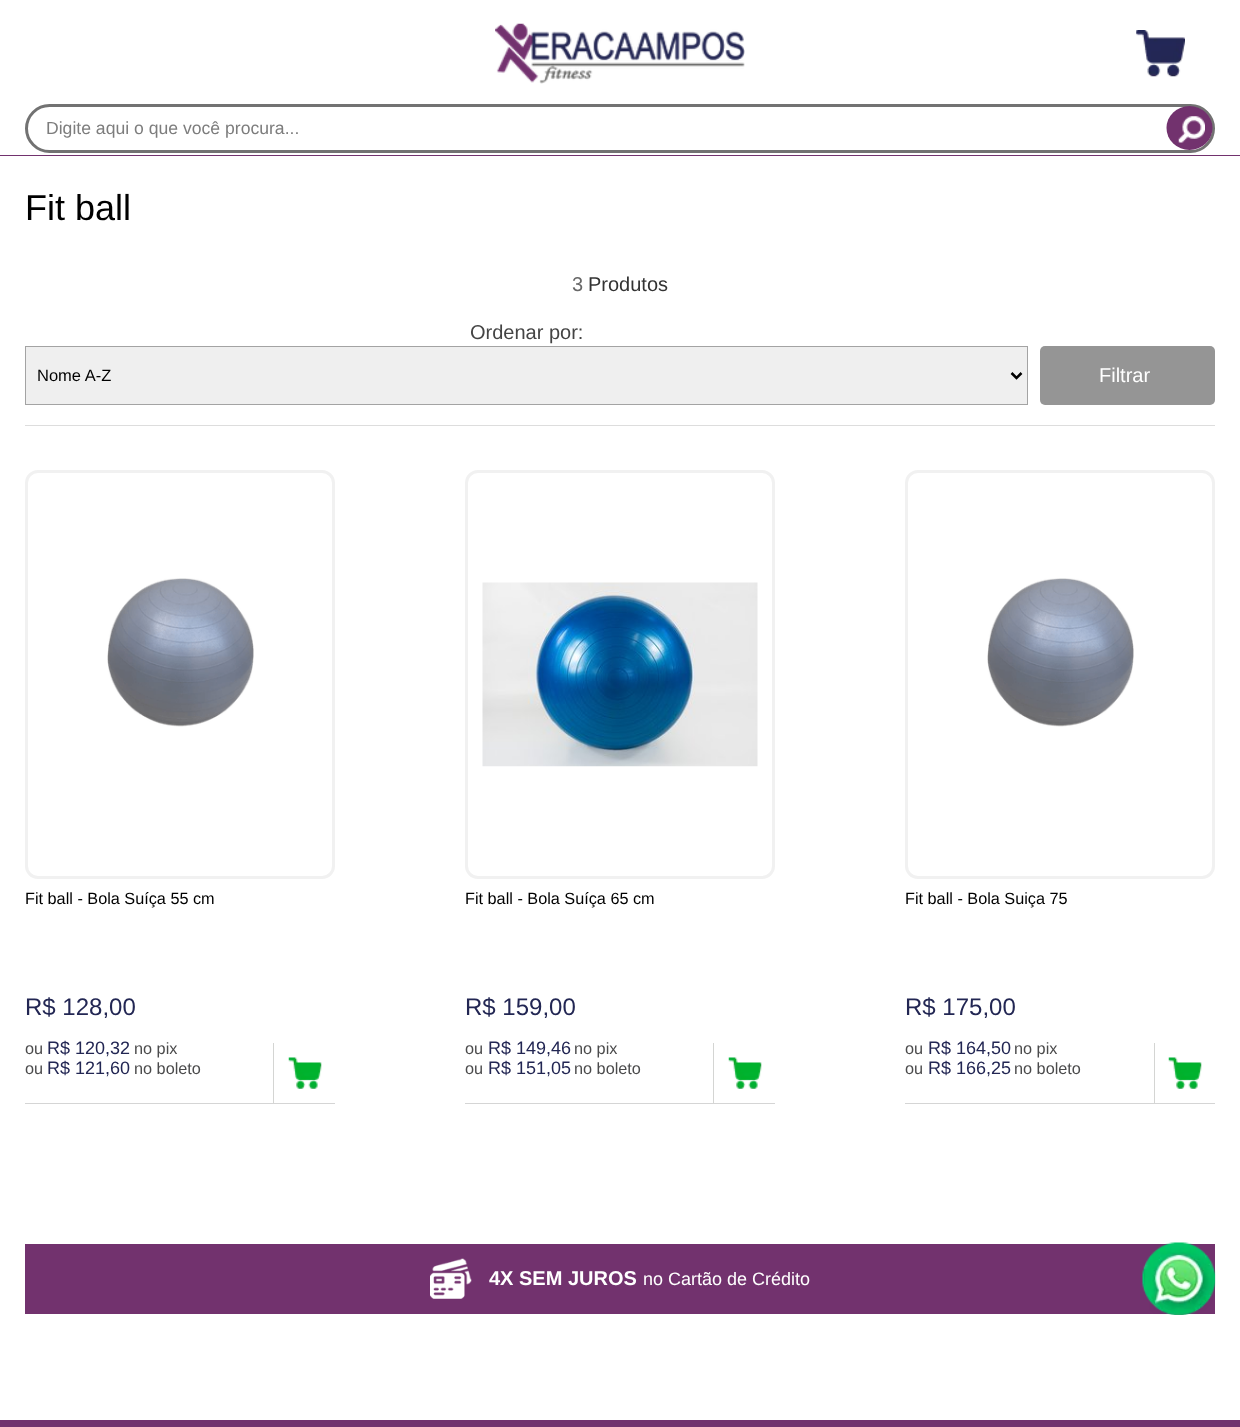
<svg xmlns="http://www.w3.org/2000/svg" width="1240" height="1427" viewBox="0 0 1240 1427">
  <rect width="100%" height="100%" fill="rgb(255,255,255)"/>
  <image x="495" y="23" width="250" height="61" href="pic1.png"/>
  <image x="1136" y="30" width="49" height="47" href="pic2.png"/>
  <rect x="26.5" y="105.5" width="1187" height="46" rx="23" fill="none" stroke="rgb(114,114,114)" stroke-width="3"/>
  <text x="46" y="134" font-family="Liberation Sans" font-size="17.6" fill="rgb(125,125,125)">Digite aqui o que você procura...</text>
  <ellipse cx="1189.5" cy="128" rx="23" ry="22" fill="rgb(114,50,110)"/>
  <image x="1178" y="116" width="27" height="27" href="pic3.png"/>
  <rect x="0" y="155" width="1240" height="1" fill="rgb(114,50,110)"/>
  <text x="25" y="220" font-family="Liberation Sans" font-size="36" fill="rgb(0,0,0)">Fit ball</text>
  <rect x="25" y="425" width="1190" height="1" fill="rgb(221,221,221)"/>
  <text x="572" y="291" font-family="Liberation Sans" font-size="20" fill="rgb(104,104,104)">3</text>
  <text x="588" y="291" font-family="Liberation Sans" font-size="20" fill="rgb(51,51,51)">Produtos</text>
  <text x="470" y="339" font-family="Liberation Sans" font-size="20" fill="rgb(68,68,68)">Ordenar por:</text>
  <rect x="25.5" y="346.5" width="1002" height="58" fill="rgb(239,239,239)" stroke="rgb(163,163,163)"/>
  <path d="M1011.5 373L1016.5 378L1021.5 373" fill="none" stroke="rgb(0,0,0)" stroke-width="2.5"/>
  <text x="37" y="381" font-family="Liberation Sans" font-size="16.5" fill="rgb(0,0,0)">Nome A-Z</text>
  <rect x="1040" y="346" width="175" height="59" rx="5" fill="rgb(149,149,149)"/>
  <text x="1099" y="382" font-family="Liberation Sans" font-size="20" fill="rgb(255,255,255)">Filtrar</text>
  <rect x="25" y="1103" width="310" height="1" fill="rgb(213,213,213)"/>
  <rect x="26.5" y="471.5" width="307" height="406" rx="11.5" fill="none" stroke="rgb(241,241,241)" stroke-width="3"/>
  <image x="107" y="578" width="147" height="149" href="pic4.png"/>
  <text x="25" y="904" font-family="Liberation Sans" font-size="16.25" fill="rgb(0,0,0)">Fit ball - Bola Suíça 55 cm</text>
  <text x="25" y="1015" font-family="Liberation Sans" font-size="24" fill="rgb(34,38,83)">R$ 128,00</text>
  <text x="25" y="1054" font-family="Liberation Sans" font-size="16.25" fill="rgb(75,75,76)">ou</text>
  <text x="47" y="1054" font-family="Liberation Sans" font-size="18" fill="rgb(34,38,83)">R$ 120,32</text>
  <g font-family="Liberation Sans" font-size="16.25" fill="rgb(75,75,76)">
    <text x="134" y="1054">no pix</text>
    <text x="25" y="1074">ou</text>
  </g>
  <text x="47" y="1074" font-family="Liberation Sans" font-size="18" fill="rgb(34,38,83)">R$ 121,60</text>
  <text x="134" y="1074" font-family="Liberation Sans" font-size="16.25" fill="rgb(75,75,76)">no boleto</text>
  <rect x="273" y="1043" width="1" height="60" fill="rgb(212,213,211)"/>
  <image x="288" y="1057" width="34" height="32" href="pic5.png"/>
  <rect x="465" y="1103" width="310" height="1" fill="rgb(213,213,213)"/>
  <rect x="466.5" y="471.5" width="307" height="406" rx="11.5" fill="none" stroke="rgb(241,241,241)" stroke-width="3"/>
  <image x="482" y="582" width="276" height="185" href="pic6.png"/>
  <text x="465" y="904" font-family="Liberation Sans" font-size="16.25" fill="rgb(0,0,0)">Fit ball - Bola Suíça 65 cm</text>
  <text x="465" y="1015" font-family="Liberation Sans" font-size="24" fill="rgb(34,38,83)">R$ 159,00</text>
  <text x="465" y="1054" font-family="Liberation Sans" font-size="16.25" fill="rgb(75,75,76)">ou</text>
  <text x="488" y="1054" font-family="Liberation Sans" font-size="18" fill="rgb(34,38,83)">R$ 149,46</text>
  <g font-family="Liberation Sans" font-size="16.25" fill="rgb(75,75,76)">
    <text x="574" y="1054">no pix</text>
    <text x="465" y="1074">ou</text>
  </g>
  <text x="488" y="1074" font-family="Liberation Sans" font-size="18" fill="rgb(34,38,83)">R$ 151,05</text>
  <text x="574" y="1074" font-family="Liberation Sans" font-size="16.25" fill="rgb(75,75,76)">no boleto</text>
  <rect x="713" y="1043" width="1" height="60" fill="rgb(212,213,211)"/>
  <image x="728" y="1057" width="34" height="32" href="pic5.png"/>
  <rect x="905" y="1103" width="310" height="1" fill="rgb(213,213,213)"/>
  <rect x="906.5" y="471.5" width="307" height="406" rx="11.5" fill="none" stroke="rgb(241,241,241)" stroke-width="3"/>
  <image x="987" y="578" width="147" height="149" href="pic7.png"/>
  <text x="905" y="904" font-family="Liberation Sans" font-size="16.25" fill="rgb(0,0,0)">Fit ball - Bola Suiça 75</text>
  <text x="905" y="1015" font-family="Liberation Sans" font-size="24" fill="rgb(34,38,83)">R$ 175,00</text>
  <text x="905" y="1054" font-family="Liberation Sans" font-size="16.25" fill="rgb(75,75,76)">ou</text>
  <text x="928" y="1054" font-family="Liberation Sans" font-size="18" fill="rgb(34,38,83)">R$ 164,50</text>
  <g font-family="Liberation Sans" font-size="16.25" fill="rgb(75,75,76)">
    <text x="1014" y="1054">no pix</text>
    <text x="905" y="1074">ou</text>
  </g>
  <text x="928" y="1074" font-family="Liberation Sans" font-size="18" fill="rgb(34,38,83)">R$ 166,25</text>
  <text x="1014" y="1074" font-family="Liberation Sans" font-size="16.25" fill="rgb(75,75,76)">no boleto</text>
  <rect x="1154" y="1043" width="1" height="60" fill="rgb(212,213,211)"/>
  <image x="1168" y="1057" width="34" height="32" href="pic5.png"/>
  <rect x="25" y="1244" width="1190" height="70" fill="rgb(114,50,110)"/>
  <image x="430" y="1258" width="42" height="41" href="pic8.png"/>
  <text x="489" y="1285" font-family="Liberation Sans" font-size="20" font-weight="bold" fill="rgb(255,255,255)">4X SEM JUROS</text>
  <text x="643" y="1285" font-family="Liberation Sans" font-size="18" fill="rgb(255,255,255)">no Cartão de Crédito</text>
  <rect x="0" y="1420" width="1240" height="7" fill="rgb(114,50,110)"/>
  <image x="1142" y="1242" width="74" height="73" href="pic9.png"/>
</svg>
